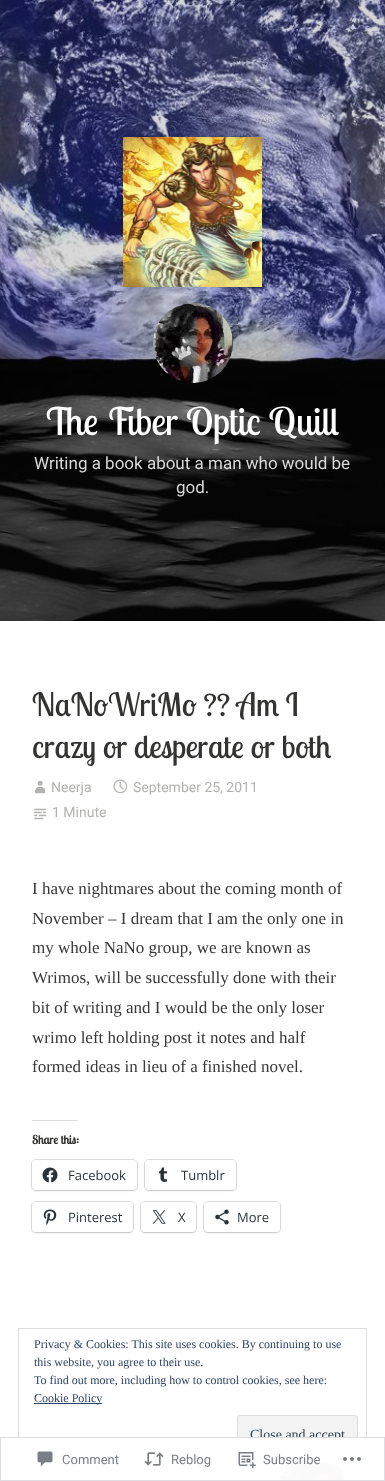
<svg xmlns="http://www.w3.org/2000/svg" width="385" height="1481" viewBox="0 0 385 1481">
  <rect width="100%" height="100%" fill="rgb(255,255,255)"/>
  <image x="0" y="0" width="385" height="621" href="pic1.png"/>
  <image x="123" y="137" width="139" height="150" href="pic2.png"/>
  <image x="153" y="303" width="80" height="80" href="pic3.png"/>
  <text x="46" y="435" font-family="Lobster Two" font-size="38" fill="rgb(255,255,255)">The Fiber Optic Quill</text>
  <g font-family="Roboto" font-size="17" fill="rgb(217,217,217)">
    <text x="34" y="469">Writing a book about a man who would be</text>
    <text x="176" y="493">god.</text>
  </g>
  <g font-family="Lobster Two" font-size="32" fill="rgb(51,51,50)">
    <text>
      <tspan x="32" y="716">NaNoWriMo ?? Am I</tspan>
      <tspan x="32" y="758">crazy or desperate or both</tspan>
    </text>
  </g>
  <image x="35" y="780" width="11" height="14" href="pic4.png"/>
  <text x="51" y="792" font-family="Roboto" font-size="14" fill="rgb(179,179,177)">Neerja</text>
  <image x="113" y="779" width="15" height="15" href="pic5.png"/>
  <text x="133" y="792" font-family="Roboto" font-size="14" fill="rgb(179,179,177)">September 25, 2011</text>
  <image x="34" y="808" width="13" height="12" href="pic6.png"/>
  <text x="52" y="817" font-family="Roboto" font-size="14" fill="rgb(179,179,177)">1 Minute</text>
  <g font-family="Liberation Serif" font-size="17" fill="rgb(56,56,56)">
    <text>
      <tspan x="32" y="894">I have nightmares about the coming month of</tspan>
      <tspan x="32" y="924">November – I dream that I am the only one in</tspan>
      <tspan x="32" y="953">my whole NaNo group, we are known as</tspan>
      <tspan x="32" y="983">Wrimos, will be successfully done with their</tspan>
      <tspan x="32" y="1013">bit of writing and I would be the only loser</tspan>
      <tspan x="32" y="1043">wrimo left holding post it notes and half</tspan>
      <tspan x="32" y="1072">formed ideas in lieu of a finished novel.</tspan>
    </text>
  </g>
  <rect x="32" y="1120" width="46" height="1" fill="rgb(220,220,222)"/>
  <text x="32" y="1144" font-family="Lobster Two" font-size="12" font-weight="bold" fill="rgb(51,51,50)">Share this:</text>
  <rect x="31.5" y="1159.5" width="106" height="31" rx="4.5" fill="none" stroke="rgb(224,224,224)"/>
  <rect x="32" y="1161" width="105" height="30" rx="4" fill="rgba(0,0,0,0.12)" filter="blur(1px)"/>
  <rect x="32" y="1160" width="105" height="30" rx="4" fill="rgb(255,255,255)"/>
  <image x="42" y="1167" width="16" height="16" href="pic7.png"/>
  <text x="68" y="1180" font-family="Open Sans" font-size="13" fill="rgb(44,51,56)">Facebook</text>
  <rect x="144.5" y="1159.5" width="92" height="31" rx="4.5" fill="none" stroke="rgb(224,224,224)"/>
  <rect x="145" y="1161" width="91" height="30" rx="4" fill="rgba(0,0,0,0.12)" filter="blur(1px)"/>
  <rect x="145" y="1160" width="91" height="30" rx="4" fill="rgb(255,255,255)"/>
  <image x="158" y="1167" width="10" height="15" href="pic8.png"/>
  <text x="181" y="1180" font-family="Open Sans" font-size="13" fill="rgb(44,51,56)">Tumblr</text>
  <rect x="31.5" y="1201.5" width="102" height="31" rx="4.5" fill="none" stroke="rgb(224,224,224)"/>
  <rect x="32" y="1203" width="101" height="30" rx="4" fill="rgba(0,0,0,0.12)" filter="blur(1px)"/>
  <rect x="32" y="1202" width="101" height="30" rx="4" fill="rgb(255,255,255)"/>
  <image x="43" y="1209" width="14" height="16" href="pic9.png"/>
  <text x="68" y="1222" font-family="Open Sans" font-size="13" fill="rgb(44,51,56)">Pinterest</text>
  <rect x="140.5" y="1201.5" width="56" height="31" rx="4.5" fill="none" stroke="rgb(224,224,224)"/>
  <rect x="141" y="1203" width="55" height="30" rx="4" fill="rgba(0,0,0,0.12)" filter="blur(1px)"/>
  <rect x="141" y="1202" width="55" height="30" rx="4" fill="rgb(255,255,255)"/>
  <image x="152" y="1210" width="14" height="14" href="pic10.png"/>
  <text x="178" y="1222" font-family="Open Sans" font-size="13" fill="rgb(44,51,56)">X</text>
  <rect x="203.5" y="1201.5" width="77" height="31" rx="4.5" fill="none" stroke="rgb(224,224,224)"/>
  <rect x="204" y="1203" width="76" height="30" rx="4" fill="rgba(0,0,0,0.12)" filter="blur(1px)"/>
  <rect x="204" y="1202" width="76" height="30" rx="4" fill="rgb(255,255,255)"/>
  <image x="215" y="1209" width="14" height="16" href="pic11.png"/>
  <text x="237" y="1222" font-family="Open Sans" font-size="13" fill="rgb(44,51,56)">More</text>
  <image x="278" y="1463" width="72" height="18" href="pic12.png"/>
  <rect x="18.5" y="1328.5" width="348" height="134" fill="none" stroke="rgb(222,222,222)"/>
  <g font-family="Liberation Serif" font-size="12" fill="rgb(46,68,103)">
    <text>
      <tspan x="34" y="1348">Privacy &amp; Cookies: This site uses cookies. By continuing to use</tspan>
      <tspan x="34" y="1366">this website, you agree to their use.</tspan>
      <tspan x="34" y="1384">To find out more, including how to control cookies, see here:</tspan>
    </text>
  </g>
  <rect x="34" y="1403" width="68" height="1" fill="rgb(46,68,103)"/>
  <text x="34" y="1402" font-family="Liberation Serif" font-size="12" fill="rgb(46,68,103)">Cookie Policy</text>
  <rect x="237.5" y="1415.5" width="120" height="38" rx="2.5" fill="rgb(243,243,243)" stroke="rgb(222,222,222)"/>
  <text x="250" y="1439" font-family="Liberation Serif" font-size="14" fill="rgb(46,68,83)">Close and accept</text>
  <rect x="18" y="1437" width="349" height="44" fill="rgba(255,255,255,0.98)"/>
  <rect x="0.5" y="1437.5" width="384" height="43" fill="none" stroke="rgba(220,220,222,0.98)"/>
  <image x="37" y="1451" width="16" height="16" href="pic13.png"/>
  <text x="62" y="1464" font-family="Roboto" font-size="13" fill="rgb(123,127,132)">Comment</text>
  <image x="144" y="1452" width="20" height="14" href="pic14.png"/>
  <text x="171" y="1464" font-family="Roboto" font-size="13" fill="rgb(123,127,132)">Reblog</text>
  <image x="238" y="1452" width="18" height="17" href="pic15.png"/>
  <text x="263" y="1464" font-family="Roboto" font-size="13" fill="rgb(123,127,132)">Subscribe</text>
  <image x="343" y="1457" width="18" height="4" href="pic16.png"/>
</svg>
